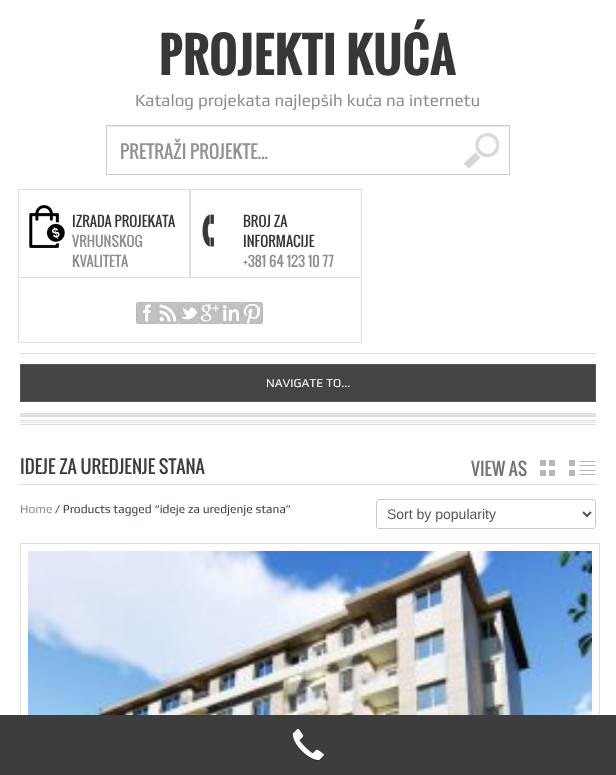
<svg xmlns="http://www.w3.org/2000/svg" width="616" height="775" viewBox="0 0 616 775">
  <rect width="100%" height="100%" fill="rgb(255,255,255)"/>
  <text x="159" y="75" font-family="Oswald" font-size="48" font-weight="bold" fill="rgb(55,55,54)">PROJEKTI KUĆA</text>
  <text x="135" y="106" font-family="Play" font-size="17" fill="rgb(141,141,141)">Katalog projekata najlepših kuća na internetu</text>
  <image x="464" y="133" width="35" height="35" href="pic1.png"/>
  <rect x="107" y="126" width="402" height="1" fill="rgb(236,236,236)"/>
  <rect x="106.5" y="125.5" width="403" height="49" fill="none" stroke="rgb(204,204,204)"/>
  <text x="120" y="159" font-family="Oswald" font-size="18" fill="rgb(147,146,146)">PRETRAŽI PROJEKTE...</text>
  <rect x="18.5" y="189.5" width="172" height="88" fill="none" stroke="rgb(224,223,223)"/>
  <image x="29" y="205" width="36" height="43" href="pic2.png"/>
  <text x="72" y="227" font-family="Oswald" font-size="14" fill="rgb(55,55,54)">IZRADA PROJEKATA</text>
  <g font-family="Oswald" font-size="14" fill="rgb(141,141,141)">
    <text>
      <tspan x="72" y="247">VRHUNSKOG</tspan>
      <tspan x="72" y="267">KVALITETA</tspan>
    </text>
  </g>
  <rect x="189.5" y="189.5" width="172" height="88" fill="none" stroke="rgb(224,223,223)"/>
  <image x="202" y="214" width="12" height="33" href="pic3.png"/>
  <g font-family="Oswald" font-size="14" fill="rgb(55,55,54)">
    <text>
      <tspan x="243" y="227">BROJ ZA</tspan>
      <tspan x="243" y="247">INFORMACIJE</tspan>
    </text>
  </g>
  <text x="243" y="267" font-family="Oswald" font-size="14" fill="rgb(141,141,141)">+381 64 123 10 77</text>
  <rect x="18.5" y="277.5" width="343" height="65" fill="none" stroke="rgb(224,223,223)"/>
  <image x="136" y="302" width="22" height="22" href="pic4.png"/>
  <image x="157" y="302" width="22" height="22" href="pic5.png"/>
  <image x="178" y="302" width="22" height="22" href="pic6.png"/>
  <image x="199" y="302" width="22" height="22" href="pic7.png"/>
  <image x="220" y="302" width="22" height="22" href="pic8.png"/>
  <image x="241" y="302" width="22" height="22" href="pic9.png"/>
  <rect x="20" y="353" width="576" height="1" fill="rgb(224,223,223)"/>
  <rect x="20.5" y="364.5" width="575" height="37" fill="rgb(68,68,68)" stroke="rgb(88,87,87)"/>
  <text x="266" y="387" font-family="Play" font-size="12" fill="rgb(255,255,255)">NAVIGATE TO...</text>
  <rect x="20" y="413" width="576" height="4" fill="rgb(224,223,223)"/>
  <rect x="20" y="420" width="576" height="1" fill="rgb(224,223,223)"/>
  <rect x="20" y="422" width="576" height="1" fill="rgb(224,223,223)"/>
  <rect x="20" y="424" width="576" height="1" fill="rgb(224,223,223)"/>
  <text x="20" y="474" font-family="Oswald" font-size="18" fill="rgb(62,61,61)">IDEJE ZA UREDJENJE STANA</text>
  <rect x="20" y="484" width="576" height="1" fill="rgb(224,223,223)"/>
  <text x="471" y="476" font-family="Oswald" font-size="17.5" fill="rgb(116,115,115)">VIEW AS</text>
  <image x="540" y="460" width="15" height="16" href="pic10.png"/>
  <image x="569" y="460" width="27" height="16" href="pic11.png"/>
  <text x="20" y="513" font-family="Play" font-size="12" fill="rgb(141,141,141)">Home</text>
  <text x="55" y="513" font-family="Play" font-size="12" fill="rgb(54,63,74)">/ Products tagged “ideje za uredjenje stana”</text>
  <rect x="376.5" y="499.5" width="219" height="29" rx="2.5" fill="none" stroke="rgb(204,204,204)"/>
  <path d="M583 512L587 516L591 512" fill="none" stroke="rgb(85,85,85)" stroke-width="2"/>
  <text x="387" y="519" font-family="Liberation Sans" font-size="14" fill="rgb(85,85,85)">Sort by popularity</text>
  <rect x="20" y="543" width="580" height="1" fill="rgb(224,223,223)"/>
  <rect x="599" y="543" width="1" height="172" fill="rgb(224,223,223)"/>
  <rect x="20" y="543" width="1" height="172" fill="rgb(224,223,223)"/>
  <image x="28" y="551" width="564" height="164" href="pic12.png"/>
  <rect x="0" y="715" width="616" height="60" fill="rgb(61,61,61)"/>
  <image x="292" y="729" width="32" height="32" href="pic13.png"/>
</svg>
